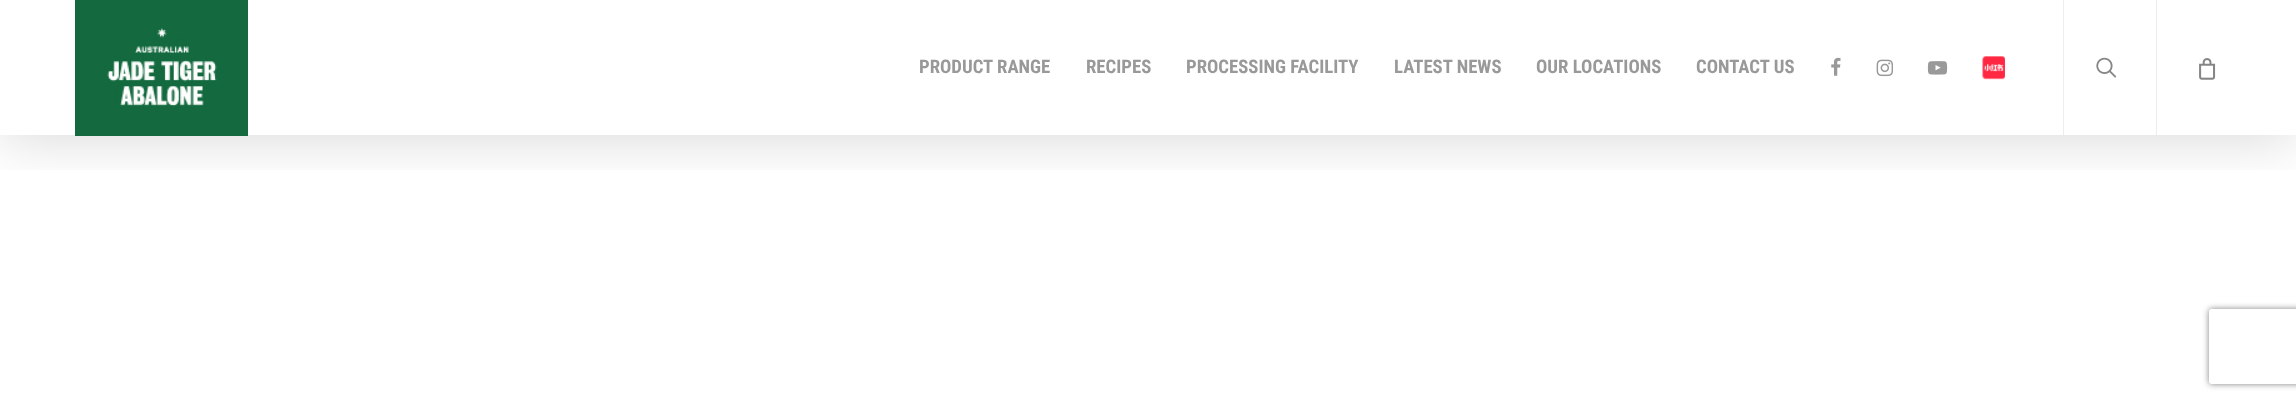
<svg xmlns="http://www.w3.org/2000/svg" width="2296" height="401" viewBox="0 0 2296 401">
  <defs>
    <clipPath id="clip1"><rect x="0" y="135" width="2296" height="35"/></clipPath>
    <clipPath id="clip2"><path d="M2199 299H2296V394H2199ZM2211.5 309H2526.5C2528 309 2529 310 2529 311.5V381.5C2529 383 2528 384 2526.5 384H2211.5C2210 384 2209 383 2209 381.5V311.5C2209 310 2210 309 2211.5 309Z" clip-rule="evenodd"/></clipPath>
  </defs>
  <rect width="100%" height="100%" fill="rgb(255,255,255)"/>
  <g clip-path="url(#clip1)">
    <rect x="0" y="4" width="2296" height="135" fill="rgba(0,0,0,0.15)" filter="blur(28px)"/>
  </g>
  <image x="75" y="0" width="173" height="136" href="pic1.png"/>
  <g font-family="Roboto Condensed" font-size="18.75" font-weight="bold" fill="rgb(153,153,153)">
    <text x="919" y="73">PRODUCT RANGE</text>
    <text x="1086" y="73">RECIPES</text>
    <text x="1186" y="73">PROCESSING FACILITY</text>
    <text x="1394" y="73">LATEST NEWS</text>
    <text x="1536" y="73">OUR LOCATIONS</text>
    <text x="1696" y="73">CONTACT US</text>
  </g>
  <image x="1831" y="57" width="10" height="19" href="pic2.png"/>
  <image x="1876" y="59" width="17" height="18" href="pic3.png"/>
  <image x="1927" y="61" width="21" height="14" href="pic4.png"/>
  <image x="1982" y="56" width="23" height="24" href="pic5.png"/>
  <rect x="2063" y="0" width="1" height="135" fill="rgb(237,237,237)"/>
  <image x="2096" y="57" width="21" height="21" href="pic6.png"/>
  <rect x="2156" y="0" width="1" height="135" fill="rgb(237,237,237)"/>
  <image x="2199" y="58" width="17" height="22" href="pic7.png"/>
  <g clip-path="url(#clip2)">
    <rect x="2209" y="309" width="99" height="75" rx="2.5" fill="rgb(128,128,128)" filter="blur(3px)"/>
  </g>
</svg>
